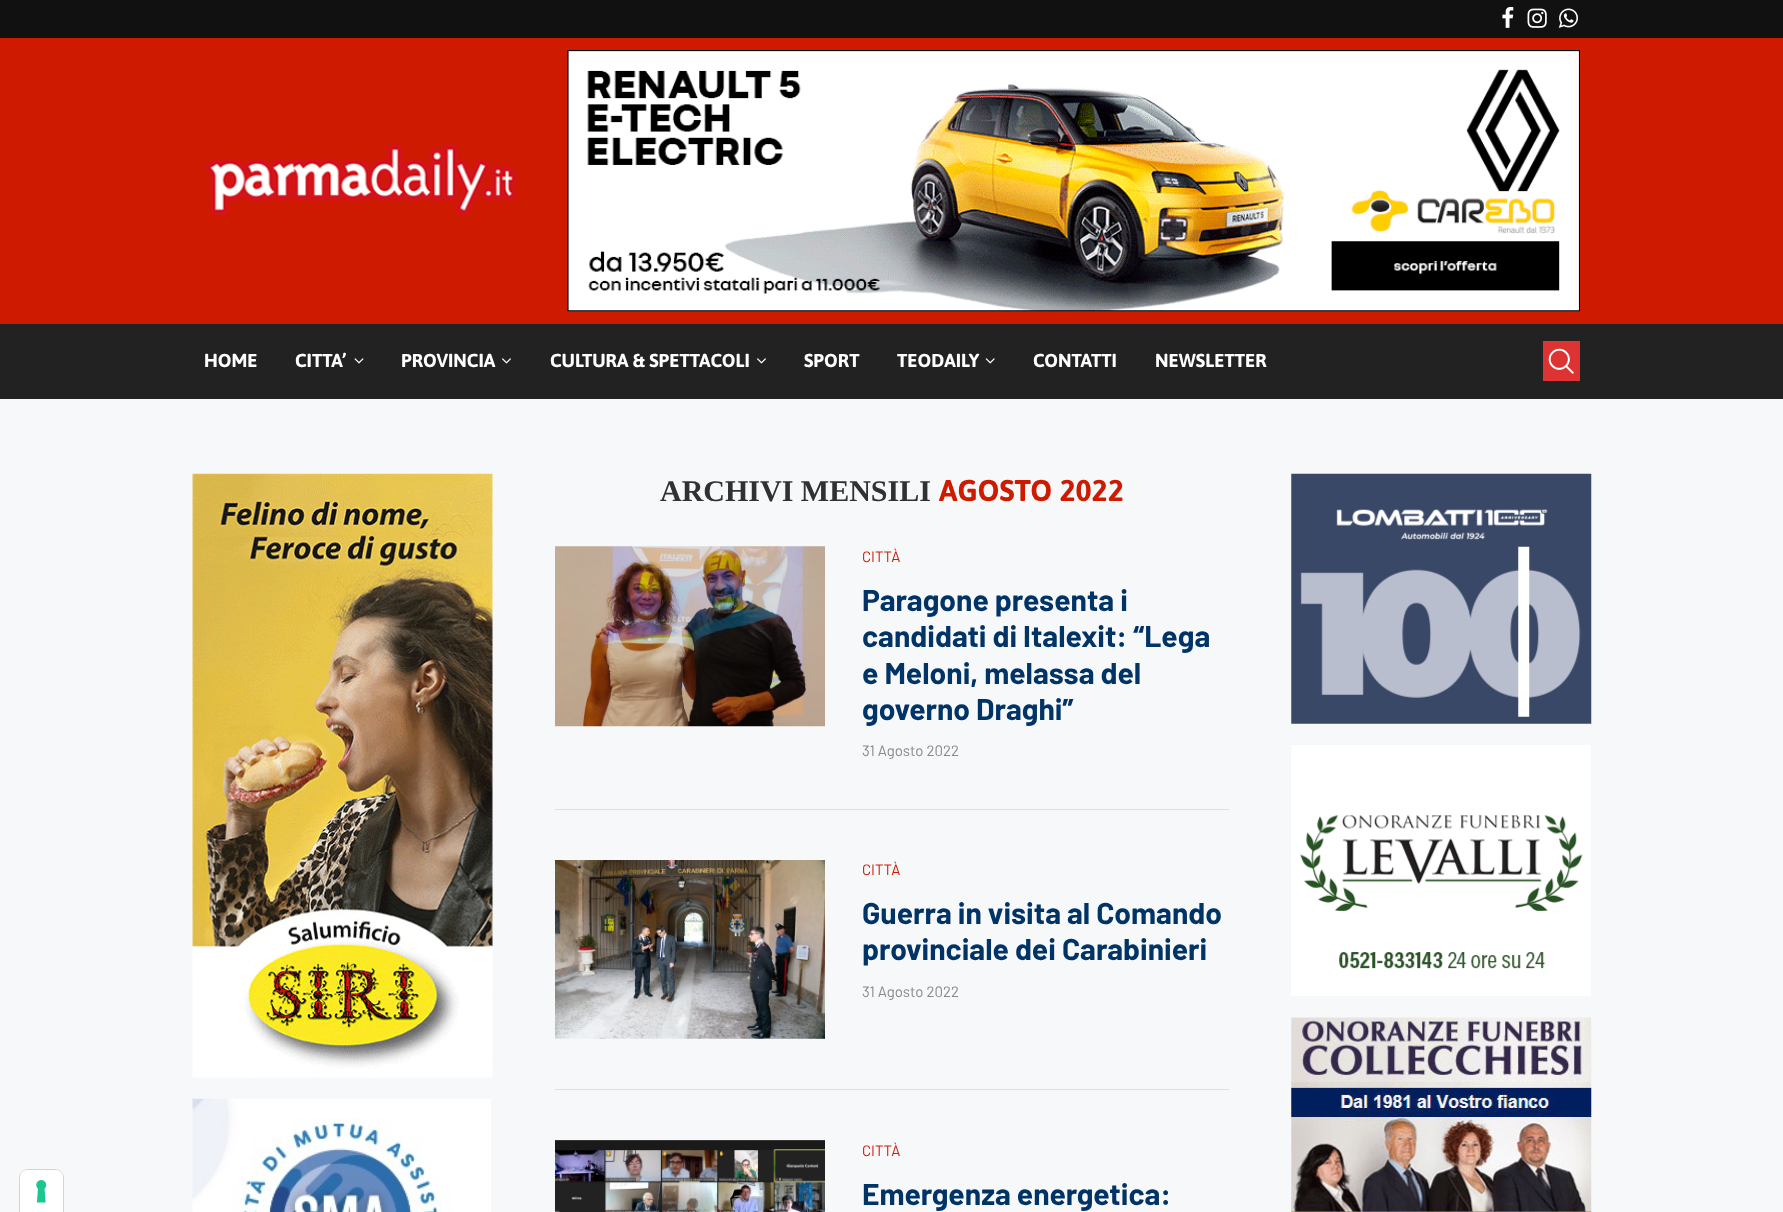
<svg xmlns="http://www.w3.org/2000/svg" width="1783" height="1212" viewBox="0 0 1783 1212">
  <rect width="100%" height="100%" fill="rgb(246,248,250)"/>
  <path d="M28 1169.5H55C59.5 1169.5 63.5 1173.5 63.5 1178V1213.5H19.5V1178C19.5 1173.5 23.5 1169.5 28 1169.5Z" fill="none" stroke="rgb(209,211,213)"/>
  <path d="M28 1170H55C59.5 1170 63 1173.5 63 1178V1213H20V1178C20 1173.5 23.5 1170 28 1170Z" fill="rgb(255,255,255)"/>
  <image x="36" y="1180" width="11" height="23" href="pic1.png"/>
  <rect x="0" y="0" width="1783" height="38" fill="rgb(17,17,17)"/>
  <image x="1502" y="7" width="12" height="21" href="pic2.png"/>
  <image x="1527" y="8" width="20" height="20" href="pic3.png"/>
  <image x="1558" y="8" width="20" height="20" href="pic4.png"/>
  <rect x="0" y="38" width="1783" height="286" fill="rgb(206,27,0)"/>
  <image x="205" y="144" width="313" height="72" href="pic5.png"/>
  <image x="567" y="50" width="1013" height="262" href="pic6.png"/>
  <rect x="0" y="324" width="1783" height="75" fill="rgb(34,34,34)"/>
  <g font-family="Asap" font-size="18.75" font-weight="bold" fill="rgb(255,255,255)">
    <text x="204" y="367">HOME</text>
    <text x="295" y="367">CITTA’</text>
  </g>
  <image x="354" y="358" width="10" height="6" href="pic7.png"/>
  <text x="401" y="367" font-family="Asap" font-size="18.75" font-weight="bold" fill="rgb(255,255,255)">PROVINCIA</text>
  <image x="502" y="358" width="9" height="6" href="pic8.png"/>
  <text x="550" y="367" font-family="Asap" font-size="18.75" font-weight="bold" fill="rgb(255,255,255)">CULTURA &amp; SPETTACOLI</text>
  <image x="757" y="358" width="9" height="6" href="pic8.png"/>
  <g font-family="Asap" font-size="18.75" font-weight="bold" fill="rgb(255,255,255)">
    <text x="804" y="367">SPORT</text>
    <text x="897" y="367">TEODAILY</text>
  </g>
  <image x="985" y="358" width="10" height="6" href="pic9.png"/>
  <g font-family="Asap" font-size="18.75" font-weight="bold" fill="rgb(255,255,255)">
    <text x="1033" y="367">CONTATTI</text>
    <text x="1155" y="367">NEWSLETTER</text>
  </g>
  <rect x="1543" y="341" width="37" height="40" fill="rgb(221,51,51)"/>
  <image x="1548" y="348" width="26" height="26" href="pic10.png"/>
  <image x="192" y="473" width="301" height="605" href="pic11.png"/>
  <image x="192" y="1098" width="299" height="114" href="pic12.png"/>
  <text x="660" y="501" font-family="Liberation Serif" font-size="30" font-weight="bold" fill="rgb(49,49,49)">ARCHIVI MENSILI</text>
  <text x="939" y="501" font-family="Asap" font-size="30" font-weight="bold" fill="rgb(206,27,0)">AGOSTO 2022</text>
  <rect x="555" y="809" width="674" height="1" fill="rgb(222,222,222)"/>
  <image x="555" y="546" width="270" height="181" href="pic13.png"/>
  <text x="862" y="562" font-family="Barlow" font-size="15" fill="rgb(206,27,0)">CITTÀ</text>
  <g font-family="Barlow" font-size="30" font-weight="bold" fill="rgb(0,51,102)">
    <text>
      <tspan x="862" y="611">Paragone presenta i</tspan>
      <tspan x="862" y="647">candidati di Italexit: “Lega</tspan>
      <tspan x="862" y="684">e Meloni, melassa del</tspan>
      <tspan x="862" y="720">governo Draghi”</tspan>
    </text>
  </g>
  <text x="862" y="756" font-family="Barlow" font-size="15" fill="rgb(136,136,136)">31 Agosto 2022</text>
  <rect x="555" y="1089" width="674" height="1" fill="rgb(222,222,222)"/>
  <image x="555" y="860" width="270" height="179" href="pic14.png"/>
  <text x="862" y="875" font-family="Barlow" font-size="15" fill="rgb(206,27,0)">CITTÀ</text>
  <g font-family="Barlow" font-size="30" font-weight="bold" fill="rgb(0,51,102)">
    <text>
      <tspan x="862" y="924">Guerra in visita al Comando</tspan>
      <tspan x="862" y="960">provinciale dei Carabinieri</tspan>
    </text>
  </g>
  <text x="862" y="997" font-family="Barlow" font-size="15" fill="rgb(136,136,136)">31 Agosto 2022</text>
  <image x="555" y="1140" width="270" height="72" href="pic15.png"/>
  <text x="862" y="1156" font-family="Barlow" font-size="15" fill="rgb(206,27,0)">CITTÀ</text>
  <text x="862" y="1205" font-family="Barlow" font-size="30" font-weight="bold" fill="rgb(0,51,102)">Emergenza energetica:</text>
  <image x="1291" y="473" width="301" height="251" href="pic16.png"/>
  <image x="1291" y="745" width="300" height="251" href="pic17.png"/>
  <image x="1291" y="1017" width="301" height="195" href="pic18.png"/>
</svg>
